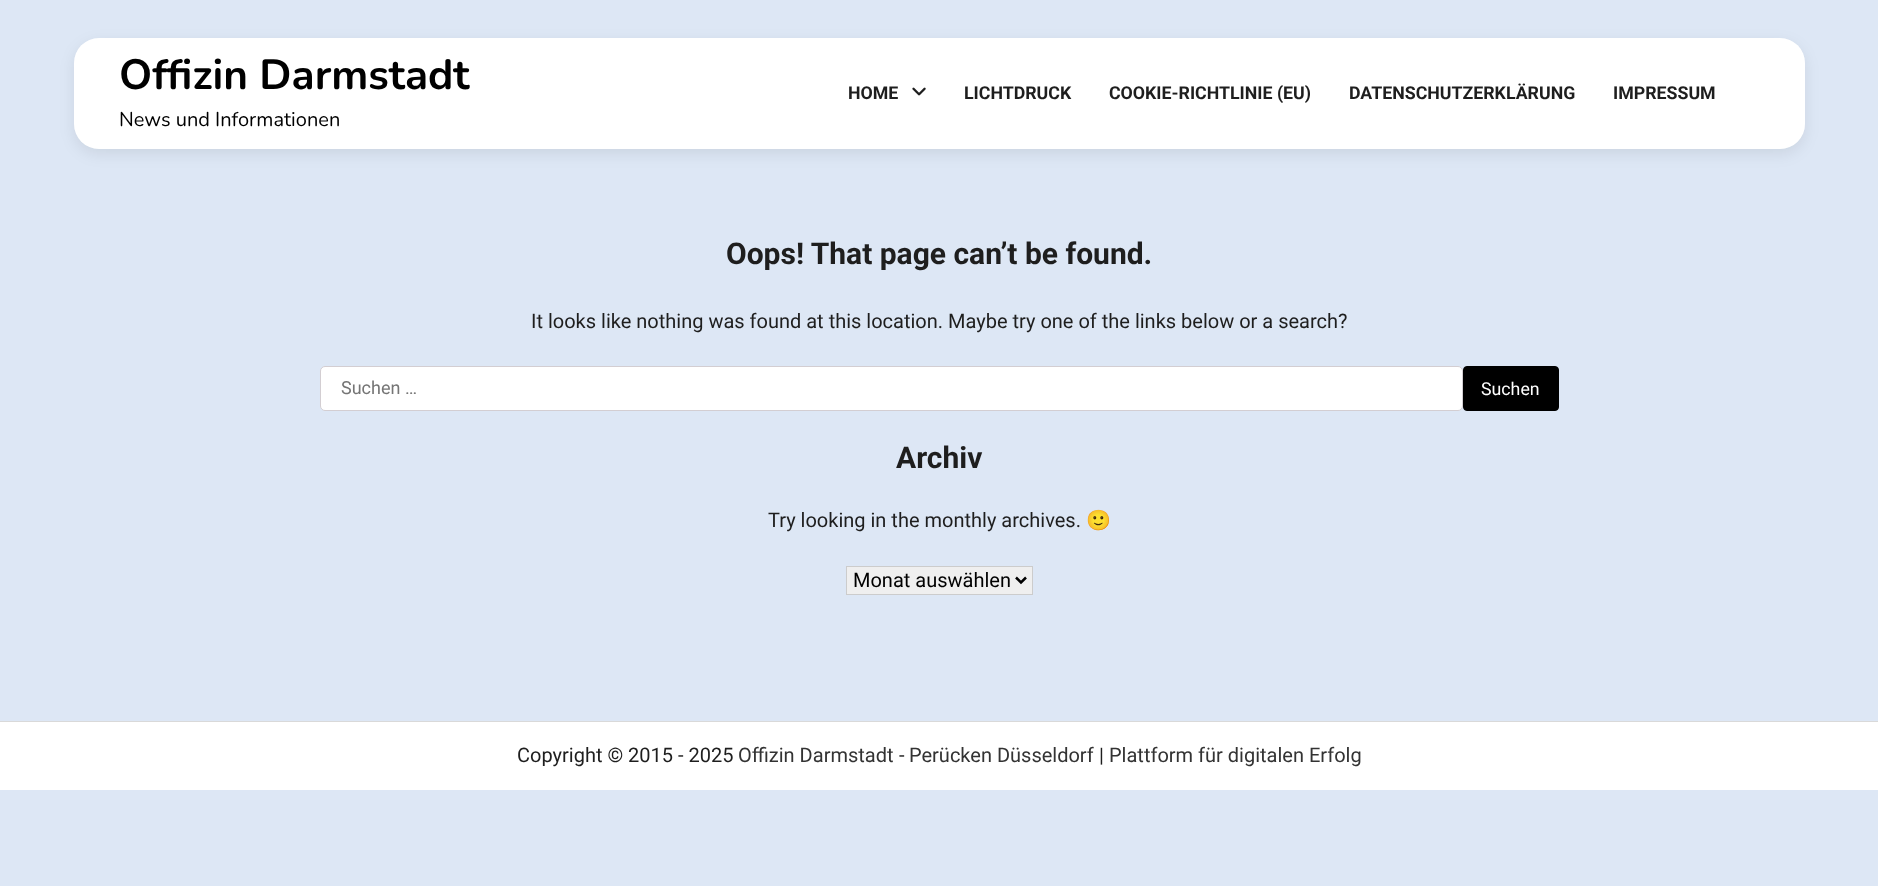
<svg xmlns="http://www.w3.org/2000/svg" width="1878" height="886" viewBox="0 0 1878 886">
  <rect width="100%" height="100%" fill="rgb(221,231,245)"/>
  <rect x="74" y="43" width="1731" height="111" rx="25" fill="rgba(0,0,0,0.08)" filter="blur(7.5px)"/>
  <rect x="74" y="38" width="1731" height="111" rx="25" fill="rgb(255,255,255)"/>
  <rect x="74.5" y="38.5" width="1730" height="110" rx="24.5" fill="none" stroke="rgba(255,255,255,0.22)"/>
  <text x="119" y="89" font-family="Nunito" font-size="42.25" font-weight="bold" fill="rgb(0,0,0)">Offizin Darmstadt</text>
  <text x="119" y="126" font-family="Nunito" font-size="20" fill="rgb(0,0,0)">News und Informationen</text>
  <text x="848" y="99" font-family="Roboto" font-size="17.75" font-weight="bold" fill="rgb(30,30,30)">HOME</text>
  <image x="912" y="87" width="14" height="9" href="pic1.png"/>
  <g font-family="Roboto" font-size="17.75" font-weight="bold" fill="rgb(30,30,30)">
    <text x="964" y="99">LICHTDRUCK</text>
    <text x="1109" y="99">COOKIE-RICHTLINIE (EU)</text>
    <text x="1349" y="99">DATENSCHUTZERKLÄRUNG</text>
    <text x="1613" y="99">IMPRESSUM</text>
  </g>
  <text x="726" y="264" font-family="Roboto" font-size="30" font-weight="bold" fill="rgb(30,30,30)">Oops! That page can’t be found.</text>
  <text x="531" y="328" font-family="Roboto" font-size="20" fill="rgb(30,30,30)">It looks like nothing was found at this location. Maybe try one of the links below or a search?</text>
  <rect x="320.5" y="366.5" width="1142" height="44" rx="4.5" fill="rgb(255,255,255)" stroke="rgb(211,206,210)"/>
  <text x="341" y="394" font-family="Roboto" font-size="18" fill="rgb(117,117,117)">Suchen …</text>
  <rect x="1463.5" y="366.5" width="95" height="44" rx="3.5" fill="rgb(0,0,0)" stroke="rgb(0,0,0)"/>
  <text x="1481" y="395" font-family="Roboto" font-size="17.75" fill="rgb(255,255,255)">Suchen</text>
  <text x="896" y="468" font-family="Roboto" font-size="30" font-weight="bold" fill="rgb(30,30,30)">Archiv</text>
  <text x="768" y="527" font-family="Roboto" font-size="20" fill="rgb(30,30,30)">Try looking in the monthly archives.</text>
  <text x="1086" y="527" font-family="Noto Color Emoji" font-size="20" fill="rgb(30,30,30)">🙂</text>
  <rect x="846.5" y="566.5" width="186" height="28" fill="rgb(239,239,239)" stroke="rgb(204,204,204)"/>
  <path d="M1016 577.5L1021 582.5L1026 577.5" fill="none" stroke="rgb(0,0,0)" stroke-width="2.5"/>
  <text x="853" y="587" font-family="Roboto" font-size="20" fill="rgb(0,0,0)">Monat auswählen</text>
  <rect x="0" y="722" width="1878" height="68" fill="rgb(255,255,255)"/>
  <rect x="0" y="721" width="1878" height="1" fill="rgb(217,217,217)"/>
  <text x="517" y="762" font-family="Roboto" font-size="20" fill="rgb(30,30,30)">Copyright © 2015 - 2025</text>
  <text x="738" y="762" font-family="Roboto" font-size="20" fill="rgb(51,51,51)">Offizin Darmstadt</text>
  <text x="899" y="762" font-family="Roboto" font-size="20" fill="rgb(30,30,30)">-</text>
  <text x="909" y="762" font-family="Roboto" font-size="20" fill="rgb(51,51,51)">Perücken Düsseldorf</text>
  <text x="1099" y="762" font-family="Roboto" font-size="20" fill="rgb(30,30,30)">|</text>
  <text x="1109" y="762" font-family="Roboto" font-size="20" fill="rgb(51,51,51)">Plattform für digitalen Erfolg</text>
</svg>
